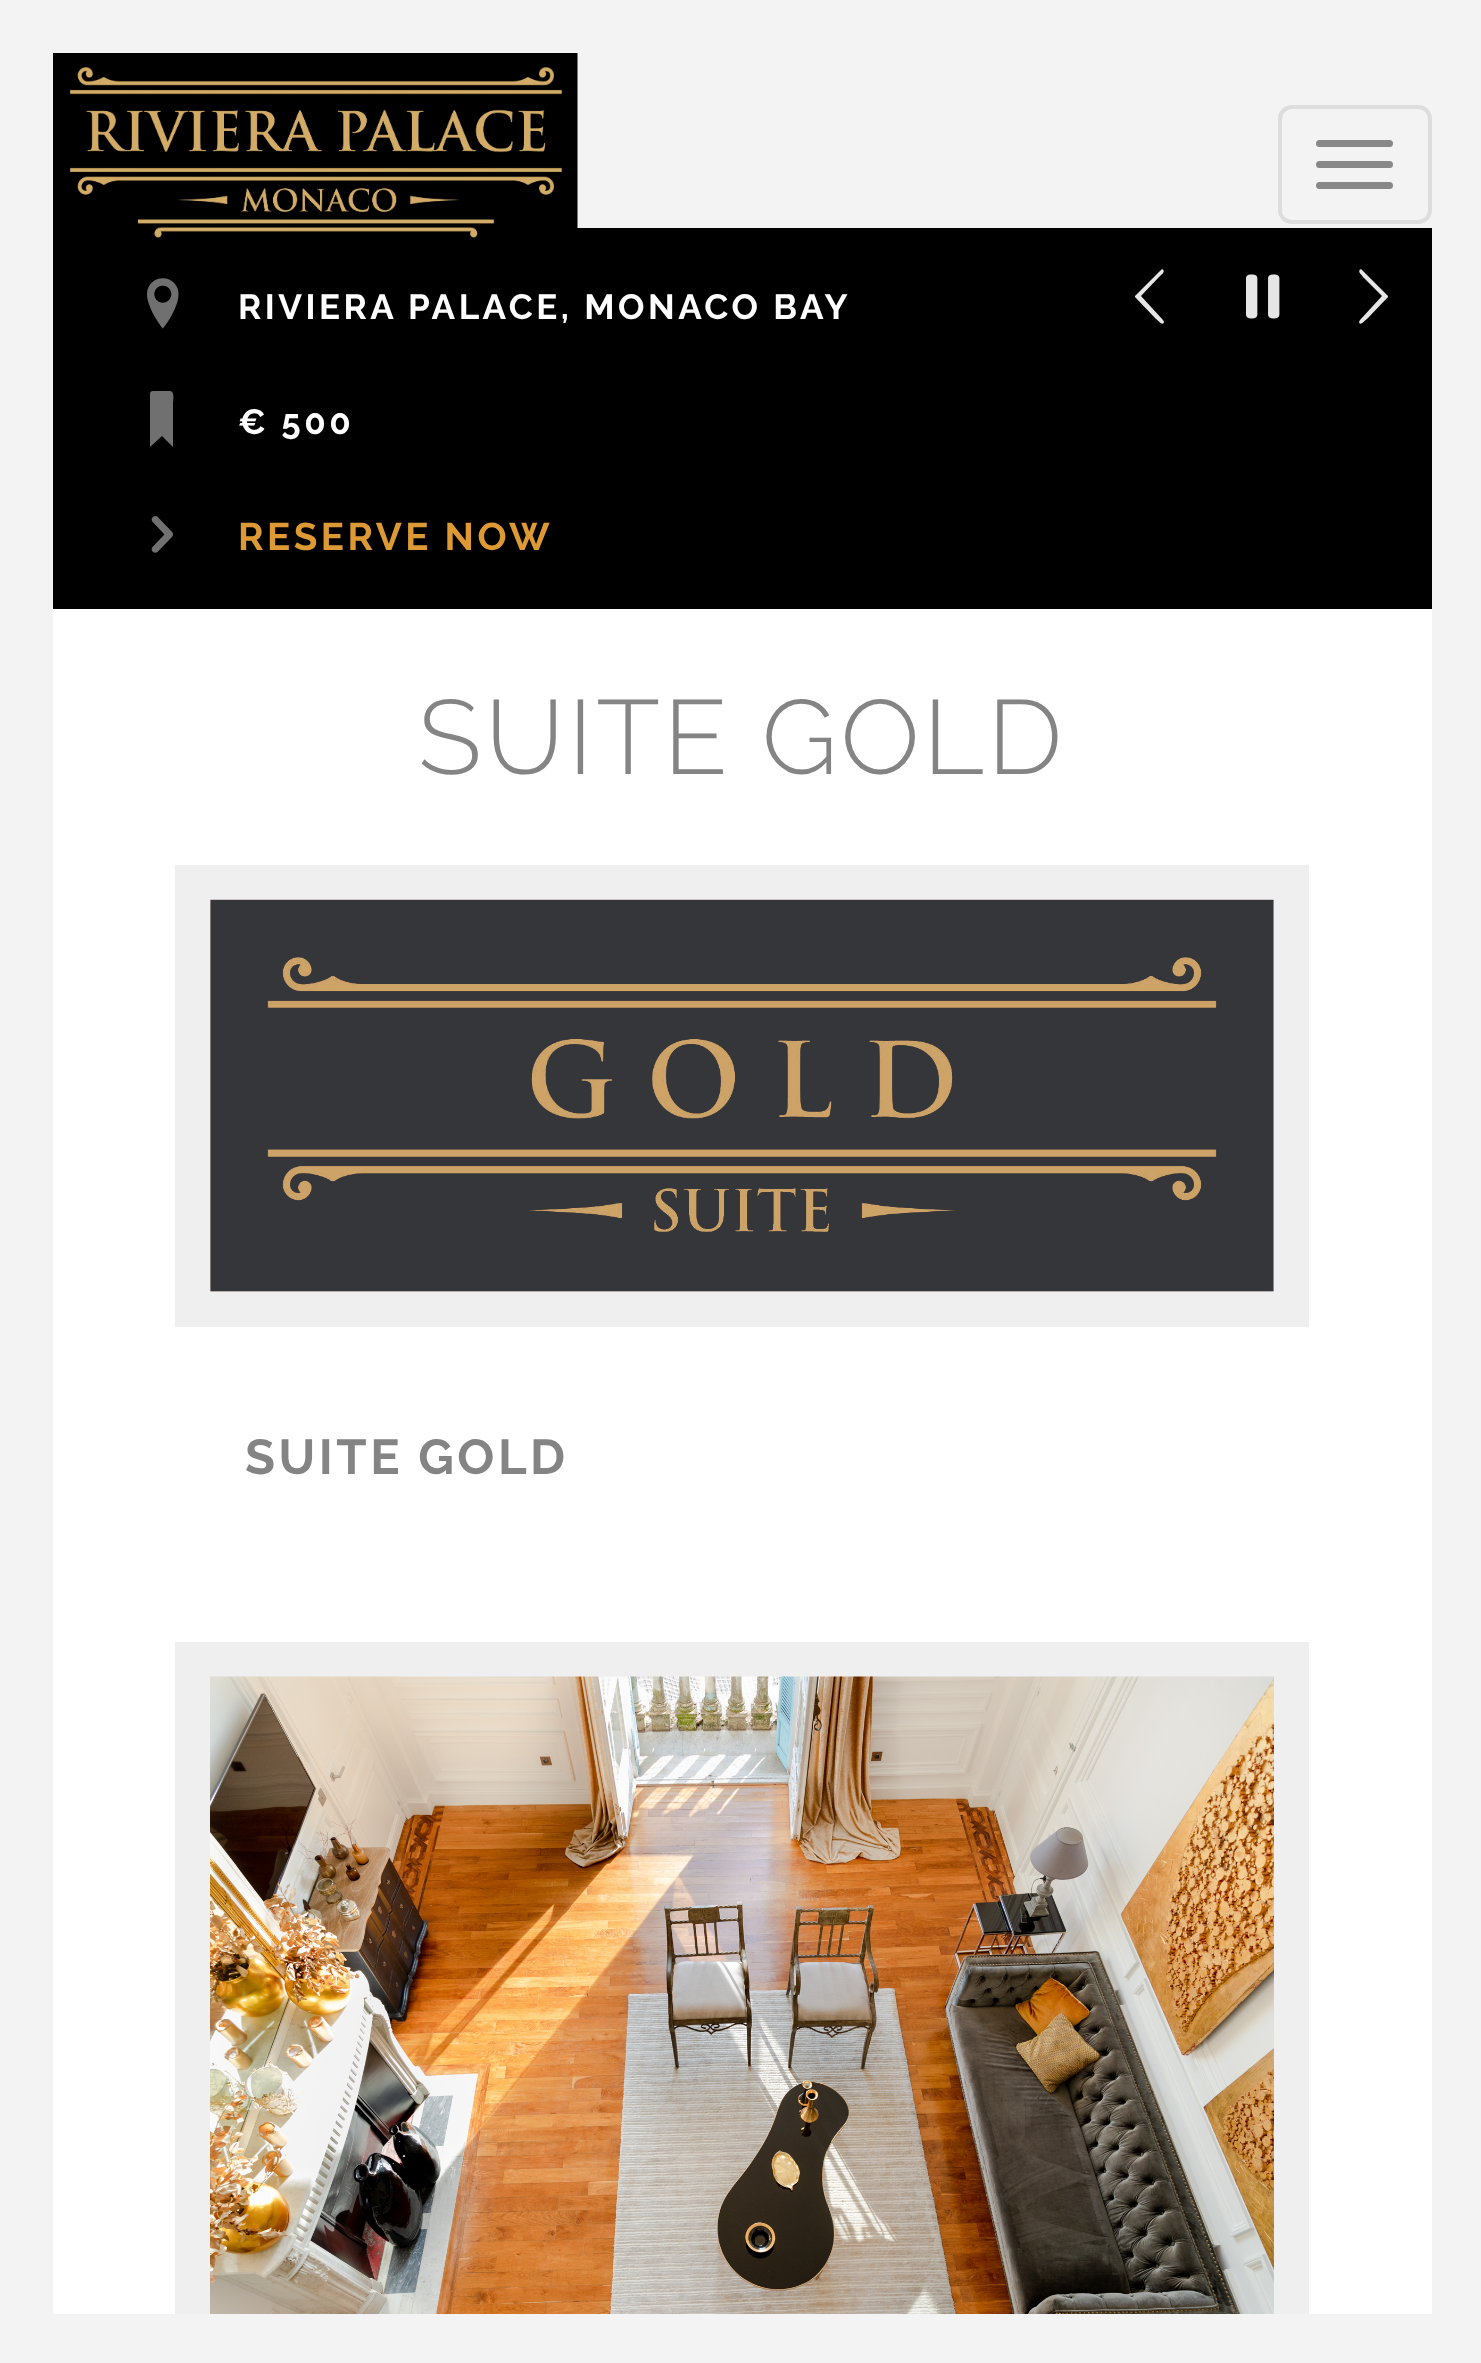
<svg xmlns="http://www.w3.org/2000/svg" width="1481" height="2363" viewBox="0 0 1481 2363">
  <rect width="100%" height="100%" fill="rgb(243,243,243)"/>
  <rect x="53" y="228" width="1379" height="381" fill="rgb(0,0,0)"/>
  <image x="53" y="53" width="525" height="199" href="pic1.png"/>
  <rect x="1280" y="107" width="150" height="115" rx="12" fill="none" stroke="rgb(221,221,221)" stroke-width="4"/>
  <rect x="1316" y="140" width="77" height="7" rx="3.5" fill="rgb(136,136,136)"/>
  <rect x="1316" y="161" width="77" height="7" rx="3.5" fill="rgb(136,136,136)"/>
  <rect x="1316" y="182" width="77" height="7" rx="3.5" fill="rgb(136,136,136)"/>
  <rect x="53" y="609" width="1379" height="1705" fill="rgb(255,255,255)"/>
  <image x="147" y="278" width="32" height="51" href="pic2.png"/>
  <text x="238" y="319" font-family="Raleway" font-size="35" font-weight="bold" letter-spacing="3.5" fill="rgb(255,255,255)">RIVIERA PALACE, MONACO BAY</text>
  <path d="M170 391C175 391 173 401 173 403V447L162 436L150 447V394C150 392 151 391 153 391Z" fill="rgb(112,112,112)"/>
  <text x="238" y="434" font-family="Raleway" font-size="35" font-weight="bold" letter-spacing="3.5" fill="rgb(255,255,255)">€ 500</text>
  <image x="151" y="516" width="22" height="37" href="pic3.png"/>
  <text x="238" y="550" font-family="Raleway" font-size="38.5" font-weight="bold" letter-spacing="3.5" fill="rgb(221,153,51)">RESERVE NOW</text>
  <path d="M1163 320L1164 322C1163 327 1157 319 1156 319L1135 297V296L1161 270L1162 269C1167 271 1160 276 1159 277L1141 296Z" fill="rgb(230,230,230)"/>
  <image x="1246" y="274" width="34" height="45" href="pic4.png"/>
  <path d="M1360 320L1382 296L1363 277C1363 276 1356 271 1361 269L1362 270L1388 296V297L1367 319C1366 319 1360 327 1359 322Z" fill="rgb(230,230,230)"/>
  <text x="418" y="774" font-family="Raleway" font-size="105" font-weight="300" letter-spacing="3.5" fill="rgb(132,132,132)">SUITE GOLD</text>
  <rect x="192.5" y="882.5" width="1099" height="427" fill="none" stroke="rgb(239,239,239)" stroke-width="35"/>
  <image x="210" y="899" width="1064" height="393" href="pic5.png"/>
  <text x="245" y="1474" font-family="Raleway" font-size="49" font-weight="bold" letter-spacing="3.5" fill="rgb(132,132,132)">SUITE GOLD</text>
  <rect x="192.5" y="1659.5" width="1099" height="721" fill="none" stroke="rgb(239,239,239)" stroke-width="35"/>
  <image x="210" y="1676" width="1064" height="638" href="pic6.png"/>
  <rect x="175" y="2314" width="1134" height="49" fill="rgb(243,243,243)"/>
</svg>
